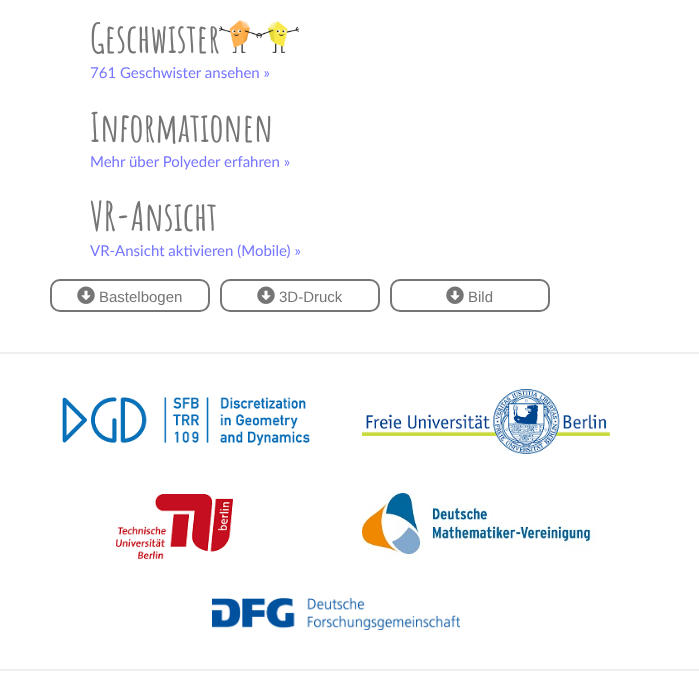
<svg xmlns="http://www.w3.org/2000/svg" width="699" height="674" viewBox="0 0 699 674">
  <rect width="100%" height="100%" fill="rgb(255,255,255)"/>
  <text x="90" y="53" font-family="Amatic SC" font-size="40" font-weight="bold" fill="rgb(117,117,117)">Geschwister</text>
  <image x="219" y="20" width="80" height="33" href="pic1.png"/>
  <text x="90" y="78" font-family="Lato" font-size="15" fill="rgb(117,117,255)">761 Geschwister ansehen »</text>
  <text x="90" y="142" font-family="Amatic SC" font-size="40" font-weight="bold" fill="rgb(117,117,117)">Informationen</text>
  <text x="90" y="167" font-family="Lato" font-size="15" fill="rgb(117,117,255)">Mehr über Polyeder erfahren »</text>
  <text x="90" y="231" font-family="Amatic SC" font-size="40" font-weight="bold" fill="rgb(117,117,117)">VR-Ansicht</text>
  <text x="90" y="256" font-family="Lato" font-size="15" fill="rgb(117,117,255)">VR-Ansicht aktivieren (Mobile) »</text>
  <rect x="51" y="280" width="158" height="31" rx="9" fill="none" stroke="rgb(117,117,117)" stroke-width="2"/>
  <image x="77" y="286" width="18" height="18" href="pic2.png"/>
  <text x="99" y="302" font-family="Liberation Sans" font-size="15" fill="rgb(117,117,117)">Bastelbogen</text>
  <rect x="221" y="280" width="158" height="31" rx="9" fill="none" stroke="rgb(117,117,117)" stroke-width="2"/>
  <image x="257" y="286" width="18" height="18" href="pic2.png"/>
  <text x="279" y="302" font-family="Liberation Sans" font-size="15" fill="rgb(117,117,117)">3D-Druck</text>
  <rect x="391" y="280" width="158" height="31" rx="9" fill="none" stroke="rgb(117,117,117)" stroke-width="2"/>
  <image x="446" y="286" width="18" height="18" href="pic2.png"/>
  <text x="468" y="302" font-family="Liberation Sans" font-size="15" fill="rgb(117,117,117)">Bild</text>
  <rect x="0" y="352" width="699" height="2" fill="rgb(239,239,239)"/>
  <image x="62" y="397" width="248" height="49" href="pic3.png"/>
  <image x="362" y="389" width="248" height="65" href="pic4.png"/>
  <image x="116" y="494" width="117" height="65" href="pic5.png"/>
  <image x="362" y="493" width="234" height="66" href="pic6.png"/>
  <image x="212" y="598" width="248" height="32" href="pic7.png"/>
  <rect x="0" y="669" width="699" height="2" fill="rgb(239,239,239)"/>
</svg>
